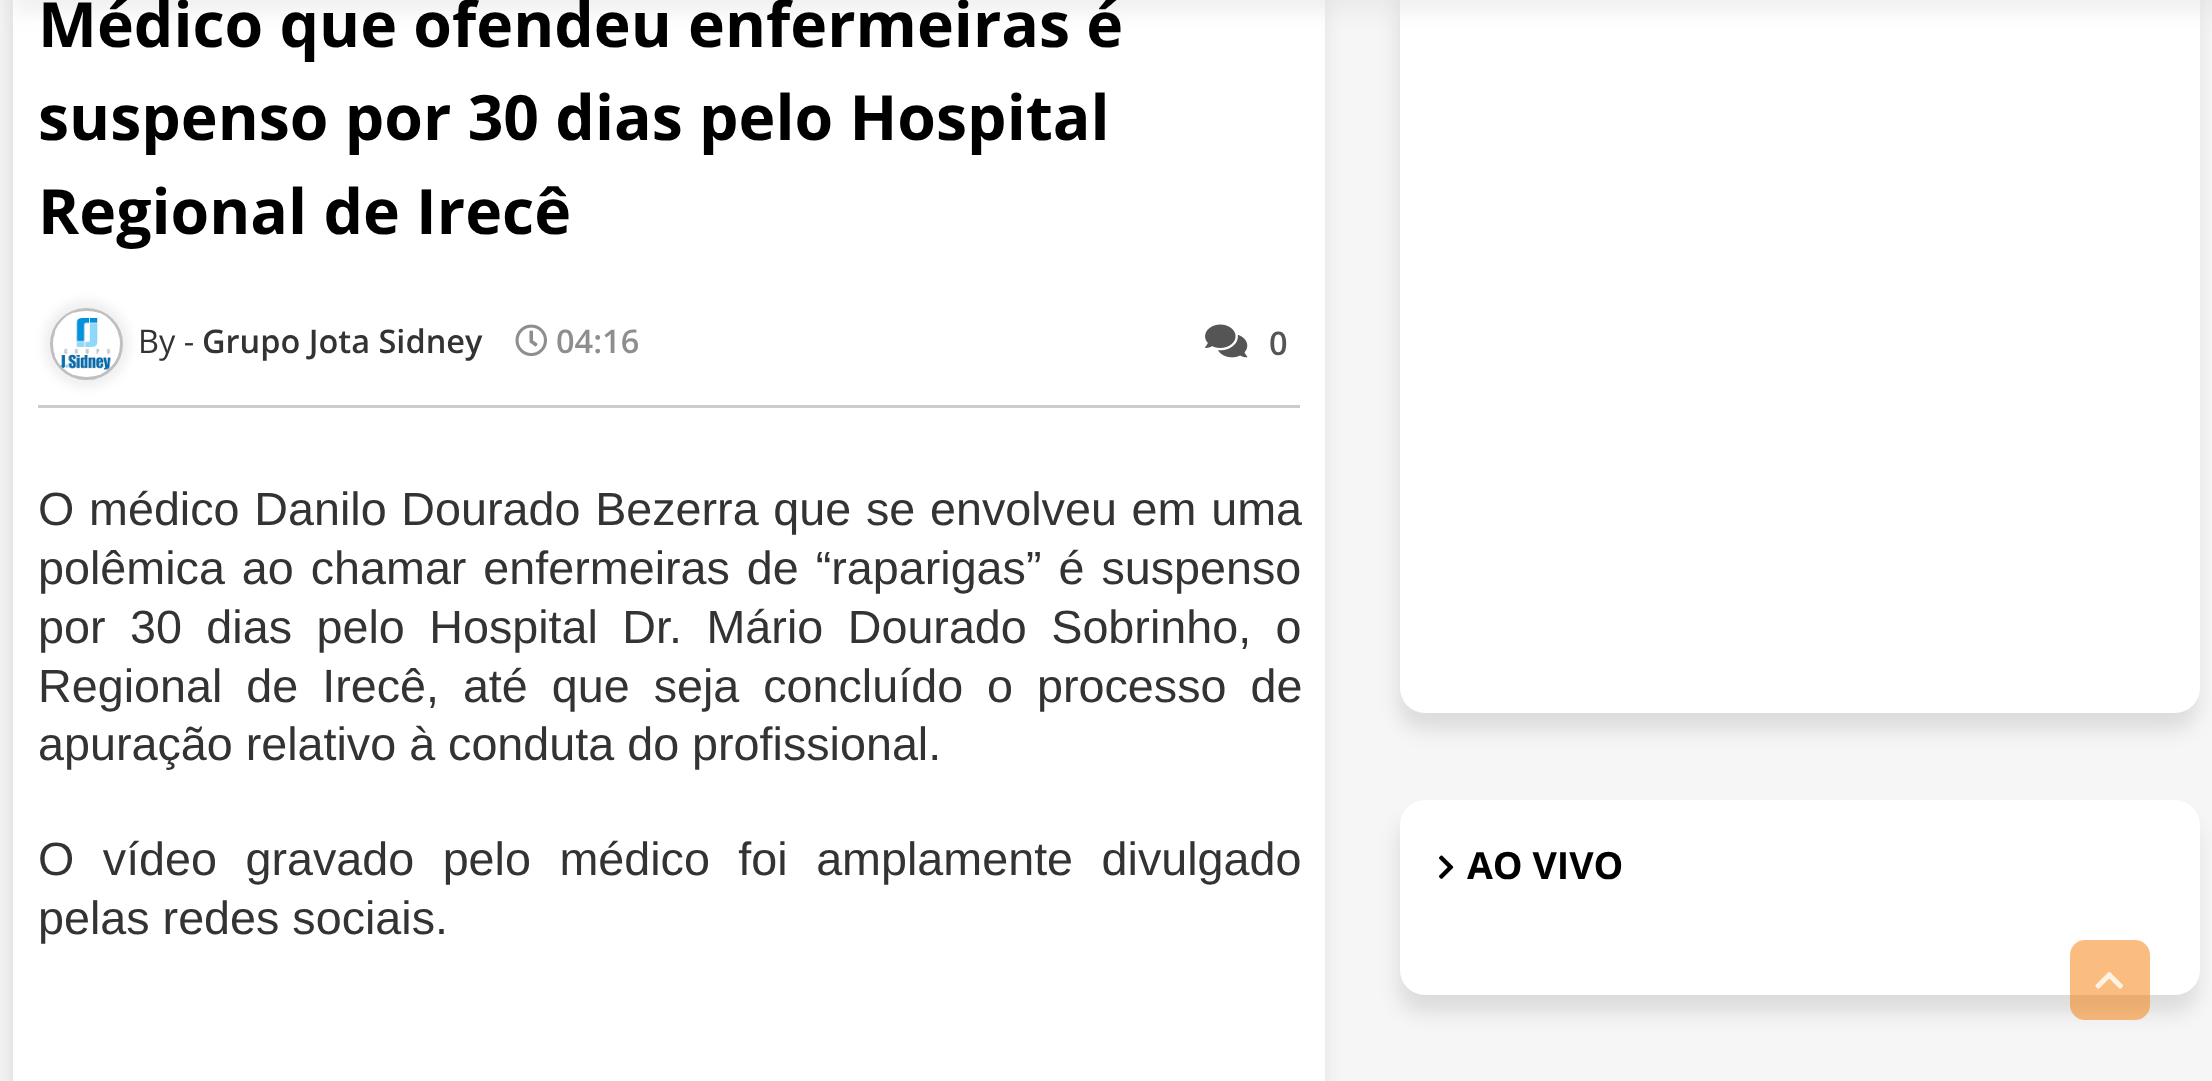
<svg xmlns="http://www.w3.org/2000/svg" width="2212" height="1081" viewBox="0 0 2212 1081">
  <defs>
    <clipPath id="clip1"><path d="M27 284H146V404H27ZM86 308H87C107 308 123 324 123 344C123 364 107 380 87 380H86C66 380 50 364 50 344C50 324 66 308 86 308Z" clip-rule="evenodd"/></clipPath>
  </defs>
  <rect width="100%" height="100%" fill="rgb(246,246,246)"/>
  <rect x="10" y="-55" width="1313" height="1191" rx="25" fill="rgba(0,0,0,0.1)" filter="blur(10px)"/>
  <rect x="13" y="0" width="1312" height="1081" fill="rgb(255,255,255)"/>
  <rect x="1398" y="-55" width="800" height="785" rx="25" fill="rgba(0,0,0,0.1)" filter="blur(10px)"/>
  <rect x="1400" y="-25" width="800" height="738" rx="25" fill="rgb(255,255,255)"/>
  <rect x="13" y="-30" width="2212" height="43" fill="rgba(224,223,223,0.48)" filter="blur(10px)"/>
  <g font-family="Open Sans" font-size="62.5" font-weight="bold" fill="rgb(0,0,0)">
    <text>
      <tspan x="38" y="47">Médico que ofendeu enfermeiras é</tspan>
      <tspan x="38" y="140">suspenso por 30 dias pelo Hospital</tspan>
      <tspan x="38" y="234">Regional de Irecê</tspan>
    </text>
  </g>
  <rect x="38" y="405" width="1262" height="3" fill="rgb(204,204,204)"/>
  <g clip-path="url(#clip1)">
    <rect x="43" y="300" width="87" height="88" rx="43.5" fill="rgba(0,0,0,0.06)" filter="blur(5px)"/>
  </g>
  <rect x="51.5" y="309.5" width="70" height="69" rx="34.5" fill="none" stroke="rgba(0,0,0,0.25)" stroke-width="3"/>
  <image x="55" y="312" width="63" height="63" href="pic1.png"/>
  <text x="138" y="353" font-family="Open Sans" font-size="32.5" fill="rgb(51,51,51)">By -</text>
  <text x="202" y="353" font-family="Open Sans" font-size="32.5" font-weight="600" fill="rgb(51,51,51)">Grupo Jota Sidney</text>
  <image x="515" y="324" width="32" height="33" href="pic2.png"/>
  <text x="556" y="353" font-family="Open Sans" font-size="32.5" font-weight="600" fill="rgb(142,142,142)">04:16</text>
  <image x="1205" y="324" width="43" height="34" href="pic3.png"/>
  <text x="1269" y="355" font-family="Open Sans" font-size="32.5" font-weight="600" fill="rgb(85,85,85)">0</text>
  <g font-family="Liberation Sans" font-size="46.7" fill="rgb(51,51,51)">
    <text>
      <tspan x="38" y="525" word-spacing="1.75">O médico Danilo Dourado Bezerra que se envolveu em uma</tspan>
      <tspan x="38" y="584" word-spacing="4">polêmica ao chamar enfermeiras de “raparigas” é suspenso</tspan>
      <tspan x="38" y="643" word-spacing="11.5">por 30 dias pelo Hospital Dr. Mário Dourado Sobrinho, o</tspan>
      <tspan x="38" y="702" word-spacing="11">Regional de Irecê, até que seja concluído o processo de</tspan>
      <tspan x="38" y="760">apuração relativo à conduta do profissional.</tspan>
    </text>
    <text>
      <tspan x="38" y="875" word-spacing="15.5">O vídeo gravado pelo médico foi amplamente divulgado</tspan>
      <tspan x="38" y="934">pelas redes sociais.</tspan>
    </text>
  </g>
  <rect x="1398" y="818" width="800" height="195" rx="25" fill="rgba(0,0,0,0.1)" filter="blur(10px)"/>
  <rect x="1400" y="800" width="800" height="195" rx="25" fill="rgb(255,255,255)"/>
  <image x="1439" y="855" width="15" height="24" href="pic4.png"/>
  <text x="1467" y="879" font-family="Open Sans" font-size="37.5" font-weight="bold" fill="rgb(0,0,0)">AO VIVO</text>
  <rect x="2070" y="940" width="80" height="80" rx="15" fill="rgba(245,124,0,0.5)"/>
  <image x="2095" y="971" width="28" height="18" href="pic5.png"/>
</svg>
